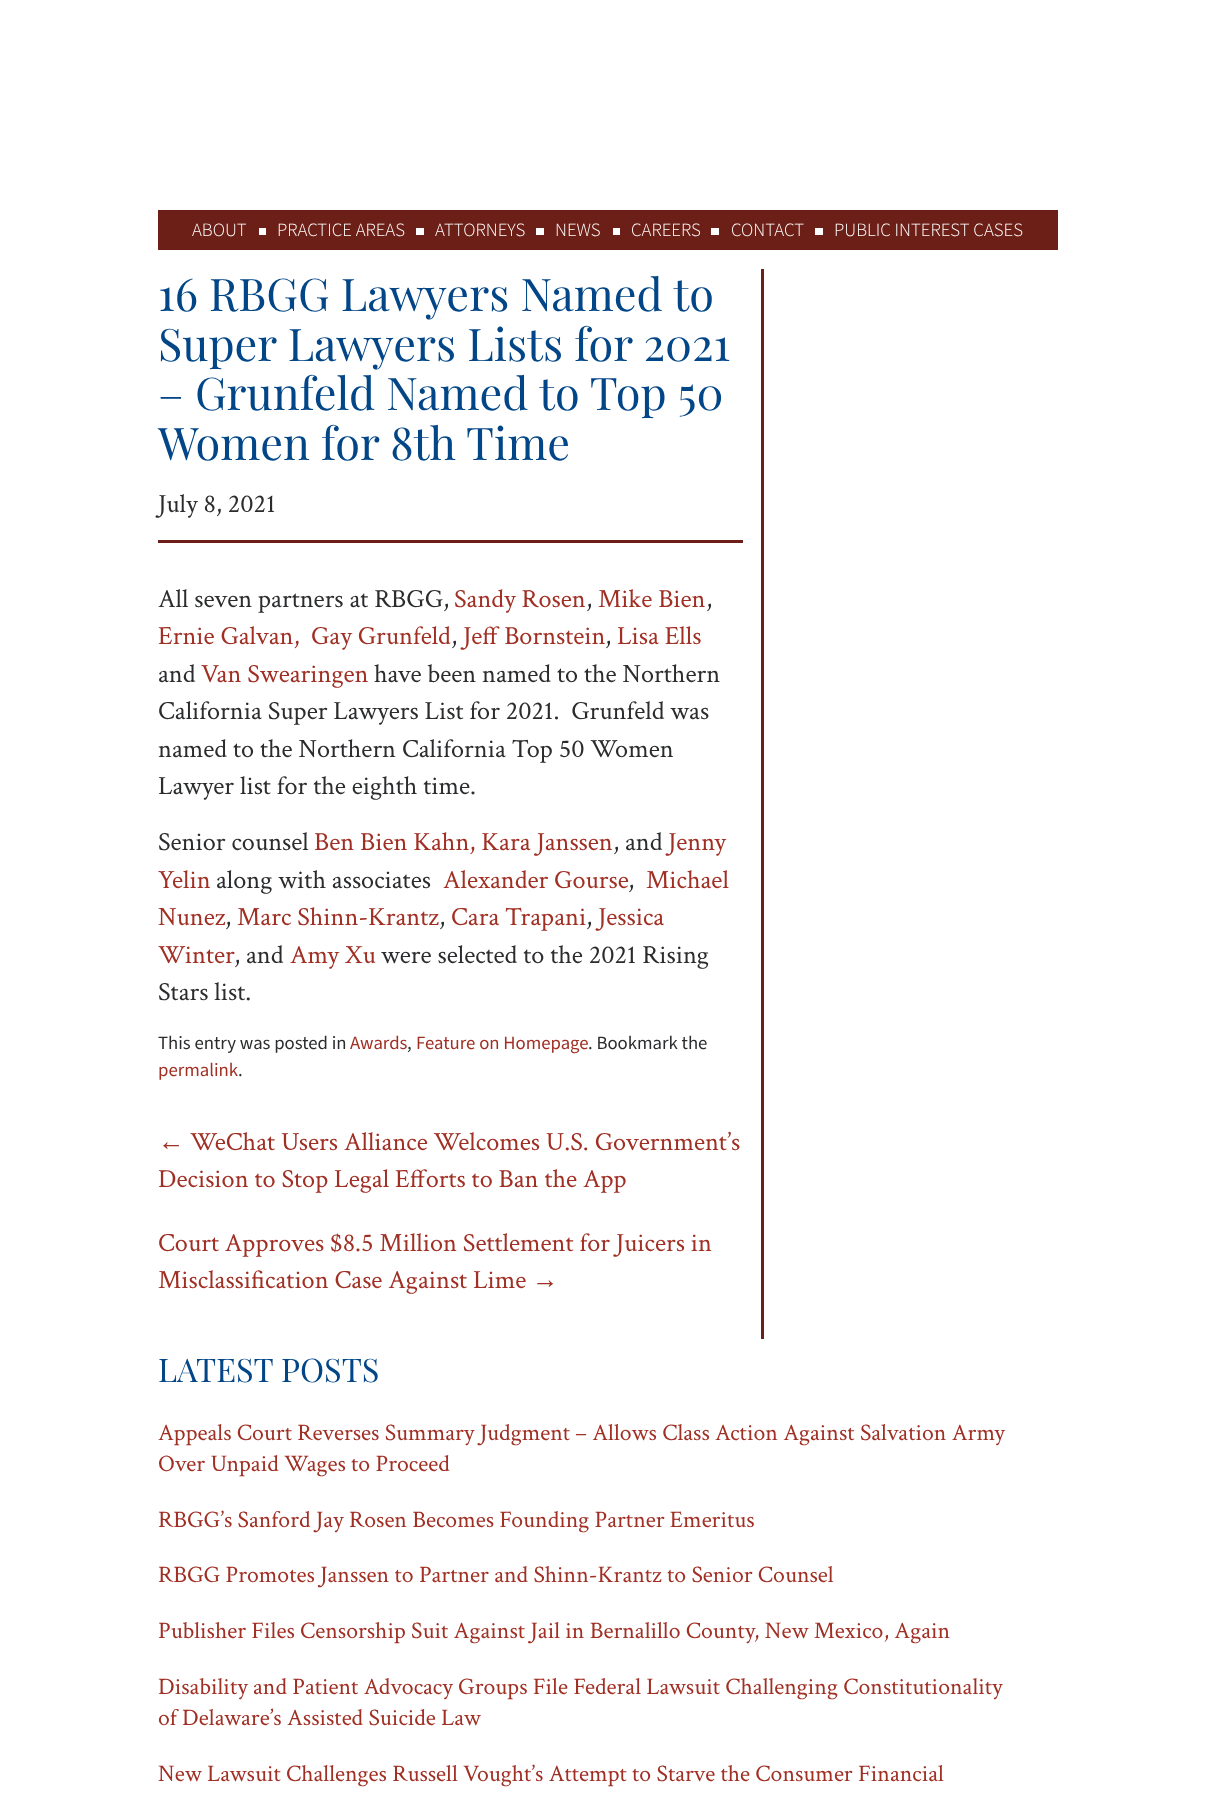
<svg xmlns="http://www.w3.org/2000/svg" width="1214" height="1807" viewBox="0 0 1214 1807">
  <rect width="100%" height="100%" fill="rgb(255,255,255)"/>
  <rect x="158" y="210" width="900" height="40" fill="rgb(108,31,23)"/>
  <text x="192" y="236" font-family="'Source Sans 3'" font-size="18.75" font-weight="300" fill="rgb(255,255,255)">ABOUT</text>
  <rect x="259" y="228" width="7" height="7" fill="rgb(255,255,255)"/>
  <text x="277" y="236" font-family="'Source Sans 3'" font-size="18.75" font-weight="300" fill="rgb(255,255,255)">PRACTICE AREAS</text>
  <rect x="416" y="228" width="8" height="7" fill="rgb(255,255,255)"/>
  <text x="435" y="236" font-family="'Source Sans 3'" font-size="18.75" font-weight="300" fill="rgb(255,255,255)">ATTORNEYS</text>
  <rect x="536" y="228" width="8" height="7" fill="rgb(255,255,255)"/>
  <text x="555" y="236" font-family="'Source Sans 3'" font-size="18.75" font-weight="300" fill="rgb(255,255,255)">NEWS</text>
  <rect x="613" y="228" width="7" height="7" fill="rgb(255,255,255)"/>
  <text x="631" y="236" font-family="'Source Sans 3'" font-size="18.75" font-weight="300" fill="rgb(255,255,255)">CAREERS</text>
  <rect x="711" y="228" width="8" height="7" fill="rgb(255,255,255)"/>
  <text x="731" y="236" font-family="'Source Sans 3'" font-size="18.75" font-weight="300" fill="rgb(255,255,255)">CONTACT</text>
  <rect x="815" y="228" width="8" height="7" fill="rgb(255,255,255)"/>
  <text x="834" y="236" font-family="'Source Sans 3'" font-size="18.75" font-weight="300" fill="rgb(255,255,255)">PUBLIC INTEREST CASES</text>
  <rect x="761" y="269" width="3" height="1070" fill="rgb(108,31,23)"/>
  <rect x="158" y="540" width="585" height="3" fill="rgb(108,31,23)"/>
  <g font-family="Playfair Display" font-size="45" fill="rgb(2,70,135)">
    <text>
      <tspan x="158" y="311">16 RBGG Lawyers Named to</tspan>
      <tspan x="158" y="361">Super Lawyers Lists for 2021</tspan>
      <tspan x="158" y="410">– Grunfeld Named to Top 50</tspan>
      <tspan x="158" y="460">Women for 8th Time</tspan>
    </text>
  </g>
  <g font-family="Crimson Text" font-size="26.25" fill="rgb(43,44,46)">
    <text x="158" y="512">July 8, 2021</text>
    <text x="158" y="607">All seven partners at RBGG,</text>
  </g>
  <text x="454" y="607" font-family="Crimson Text" font-size="26.25" fill="rgb(160,47,36)">Sandy Rosen</text>
  <text x="586" y="607" font-family="Crimson Text" font-size="26.25" fill="rgb(43,44,46)">,</text>
  <text x="598" y="607" font-family="Crimson Text" font-size="26.25" fill="rgb(160,47,36)">Mike Bien</text>
  <text x="706" y="607" font-family="Crimson Text" font-size="26.25" fill="rgb(43,44,46)">,</text>
  <g font-family="Crimson Text" font-size="26.25" fill="rgb(160,47,36)">
    <text x="158" y="644">Ernie Galvan,</text>
    <text x="311" y="644">Gay Grunfeld</text>
  </g>
  <text x="451" y="644" font-family="Crimson Text" font-size="26.25" fill="rgb(43,44,46)">,</text>
  <text x="463" y="644" font-family="Crimson Text" font-size="26.25" fill="rgb(160,47,36)">Jeff Bornstein</text>
  <text x="605" y="644" font-family="Crimson Text" font-size="26.25" fill="rgb(43,44,46)">,</text>
  <text x="617" y="644" font-family="Crimson Text" font-size="26.25" fill="rgb(160,47,36)">Lisa Ells</text>
  <text x="158" y="682" font-family="Crimson Text" font-size="26.25" fill="rgb(43,44,46)">and</text>
  <text x="201" y="682" font-family="Crimson Text" font-size="26.25" fill="rgb(160,47,36)">Van Swearingen</text>
  <g font-family="Crimson Text" font-size="26.25" fill="rgb(43,44,46)">
    <text x="374" y="682">have been named to the Northern</text>
    <text xml:space="preserve"><tspan x="158" y="719">California Super Lawyers List for 2021.  Grunfeld was</tspan><tspan x="158" y="757">named to the Northern California Top 50 Women</tspan><tspan x="158" y="794">Lawyer list for the eighth time.</tspan></text>
    <text x="158" y="850">Senior counsel</text>
  </g>
  <text x="314" y="850" font-family="Crimson Text" font-size="26.25" fill="rgb(160,47,36)">Ben Bien Kahn, Kara Janssen</text>
  <text x="613" y="850" font-family="Crimson Text" font-size="26.25" fill="rgb(43,44,46)">, and</text>
  <g font-family="Crimson Text" font-size="26.25" fill="rgb(160,47,36)">
    <text x="668" y="850">Jenny</text>
    <text x="158" y="888">Yelin</text>
  </g>
  <text x="216" y="888" font-family="Crimson Text" font-size="26.25" fill="rgb(43,44,46)">along with associates</text>
  <text x="443" y="888" font-family="Crimson Text" font-size="26.25" fill="rgb(160,47,36)">Alexander Gourse</text>
  <text x="628" y="888" font-family="Crimson Text" font-size="26.25" fill="rgb(43,44,46)">,</text>
  <g font-family="Crimson Text" font-size="26.25" fill="rgb(160,47,36)">
    <text x="646" y="888">Michael</text>
    <text x="158" y="925">Nunez</text>
  </g>
  <text x="225" y="925" font-family="Crimson Text" font-size="26.25" fill="rgb(43,44,46)">,</text>
  <text x="237" y="925" font-family="Crimson Text" font-size="26.25" fill="rgb(160,47,36)">Marc Shinn-Krantz</text>
  <text x="439" y="925" font-family="Crimson Text" font-size="26.25" fill="rgb(43,44,46)">,</text>
  <text x="451" y="925" font-family="Crimson Text" font-size="26.25" fill="rgb(160,47,36)">Cara Trapani</text>
  <text x="586" y="925" font-family="Crimson Text" font-size="26.25" fill="rgb(43,44,46)">,</text>
  <g font-family="Crimson Text" font-size="26.25" fill="rgb(160,47,36)">
    <text x="598" y="925">Jessica</text>
    <text x="158" y="963">Winter</text>
  </g>
  <text x="234" y="963" font-family="Crimson Text" font-size="26.25" fill="rgb(43,44,46)">, and</text>
  <text x="290" y="963" font-family="Crimson Text" font-size="26.25" fill="rgb(160,47,36)">Amy Xu</text>
  <g font-family="Crimson Text" font-size="26.25" fill="rgb(43,44,46)">
    <text x="381" y="963">were selected to the 2021 Rising</text>
    <text x="158" y="1000">Stars list.</text>
  </g>
  <text x="158" y="1049" font-family="'Source Sans 3'" font-size="18.75" fill="rgb(43,44,46)">This entry was posted in</text>
  <text x="350" y="1049" font-family="'Source Sans 3'" font-size="18.75" fill="rgb(160,47,36)">Awards</text>
  <text x="407" y="1049" font-family="'Source Sans 3'" font-size="18.75" fill="rgb(43,44,46)">,</text>
  <text x="416" y="1049" font-family="'Source Sans 3'" font-size="18.75" fill="rgb(160,47,36)">Feature on Homepage</text>
  <text x="588" y="1049" font-family="'Source Sans 3'" font-size="18.75" fill="rgb(43,44,46)">. Bookmark the</text>
  <text x="158" y="1076" font-family="'Source Sans 3'" font-size="18.75" fill="rgb(160,47,36)">permalink</text>
  <text x="238" y="1076" font-family="'Source Sans 3'" font-size="18.75" fill="rgb(43,44,46)">.</text>
  <text x="158" y="1150" font-family="Liberation Serif" font-size="26.25" fill="rgb(160,47,36)">←</text>
  <g font-family="Crimson Text" font-size="26.25" fill="rgb(160,47,36)">
    <text x="190" y="1150">WeChat Users Alliance Welcomes U.S. Government’s</text>
    <text x="158" y="1187">Decision to Stop Legal Efforts to Ban the App</text>
    <text>
      <tspan x="158" y="1251">Court Approves $8.5 Million Settlement for Juicers in</tspan>
      <tspan x="158" y="1288">Misclassification Case Against Lime</tspan>
    </text>
  </g>
  <text x="532" y="1288" font-family="Liberation Serif" font-size="26.25" fill="rgb(160,47,36)">→</text>
  <text x="158" y="1382" font-family="Playfair Display" font-size="32.5" fill="rgb(2,70,135)">LATEST POSTS</text>
  <g font-family="Crimson Text" font-size="23.75" fill="rgb(160,47,36)">
    <text>
      <tspan x="158" y="1440">Appeals Court Reverses Summary Judgment – Allows Class Action Against Salvation Army</tspan>
      <tspan x="158" y="1471">Over Unpaid Wages to Proceed</tspan>
    </text>
    <text x="158" y="1527">RBGG’s Sanford Jay Rosen Becomes Founding Partner Emeritus</text>
    <text x="158" y="1582">RBGG Promotes Janssen to Partner and Shinn-Krantz to Senior Counsel</text>
    <text x="158" y="1638">Publisher Files Censorship Suit Against Jail in Bernalillo County, New Mexico, Again</text>
    <text>
      <tspan x="158" y="1694">Disability and Patient Advocacy Groups File Federal Lawsuit Challenging Constitutionality</tspan>
      <tspan x="158" y="1725">of Delaware’s Assisted Suicide Law</tspan>
    </text>
    <text x="158" y="1781">New Lawsuit Challenges Russell Vought’s Attempt to Starve the Consumer Financial</text>
  </g>
</svg>
